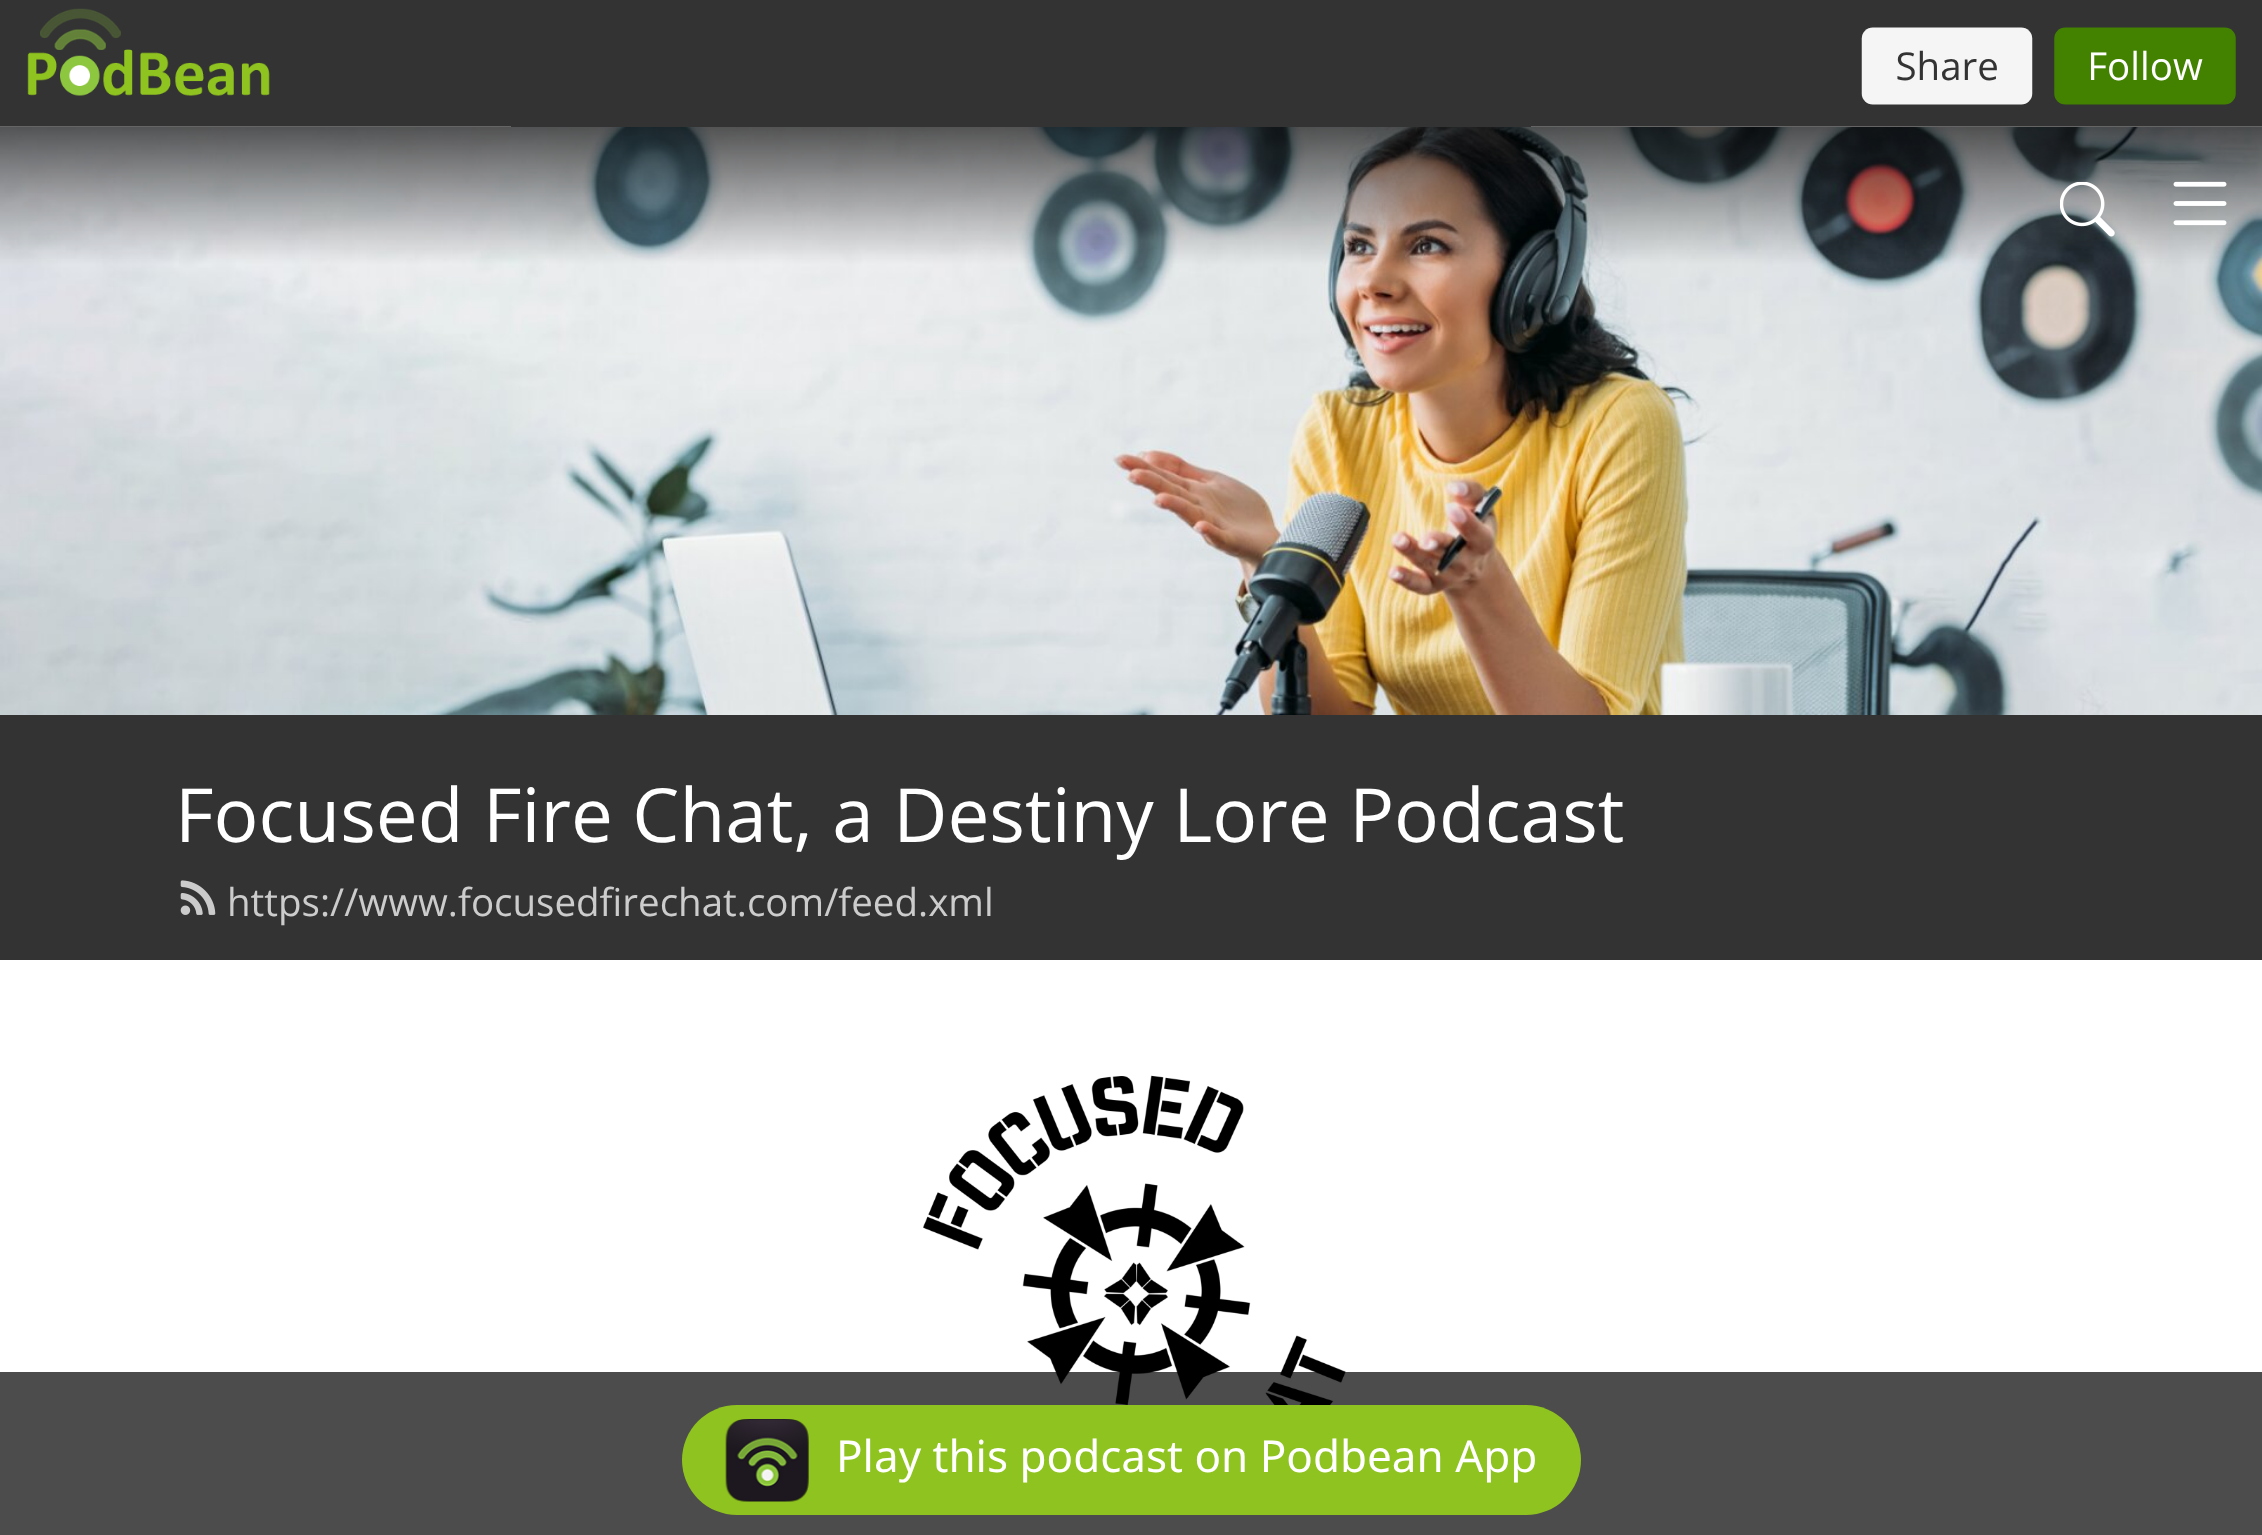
<svg xmlns="http://www.w3.org/2000/svg" width="2262" height="1535" viewBox="0 0 2262 1535">
  <rect width="100%" height="100%" fill="rgb(255,255,255)"/>
  <rect x="0" y="0" width="2262" height="8" fill="rgb(51,51,51)"/>
  <image x="0" y="8" width="2262" height="119" href="pic1.png"/>
  <image x="0" y="127" width="2262" height="588" href="pic4.png"/>
  <image x="2060" y="182" width="55" height="55" href="pic2.png"/>
  <image x="2173" y="181" width="54" height="45" href="pic3.png"/>
  <rect x="0" y="715" width="2262" height="245" fill="rgb(51,51,51)"/>
  <text x="175" y="842" font-family="Open Sans" font-size="74.75" fill="rgb(255,255,255)">Focused Fire Chat, a Destiny Lore Podcast</text>
  <image x="180" y="880" width="36" height="35" href="pic5.png"/>
  <text x="227" y="916" font-family="Open Sans" font-size="38.5" fill="rgb(204,204,204)">https://www.focusedfirechat.com/feed.xml</text>
  <image x="923" y="1075" width="423" height="330" href="pic6.png"/>
  <rect x="0" y="1372" width="2262" height="163" fill="rgba(0,0,0,0.7)"/>
  <rect x="682" y="1405" width="899" height="110" rx="55" fill="rgb(143,195,31)"/>
  <image x="725" y="1419" width="84" height="83" href="pic7.png"/>
  <text x="836" y="1472" font-family="Noto Sans" font-size="44" fill="rgb(255,255,255)">Play this podcast on Podbean App</text>
</svg>
